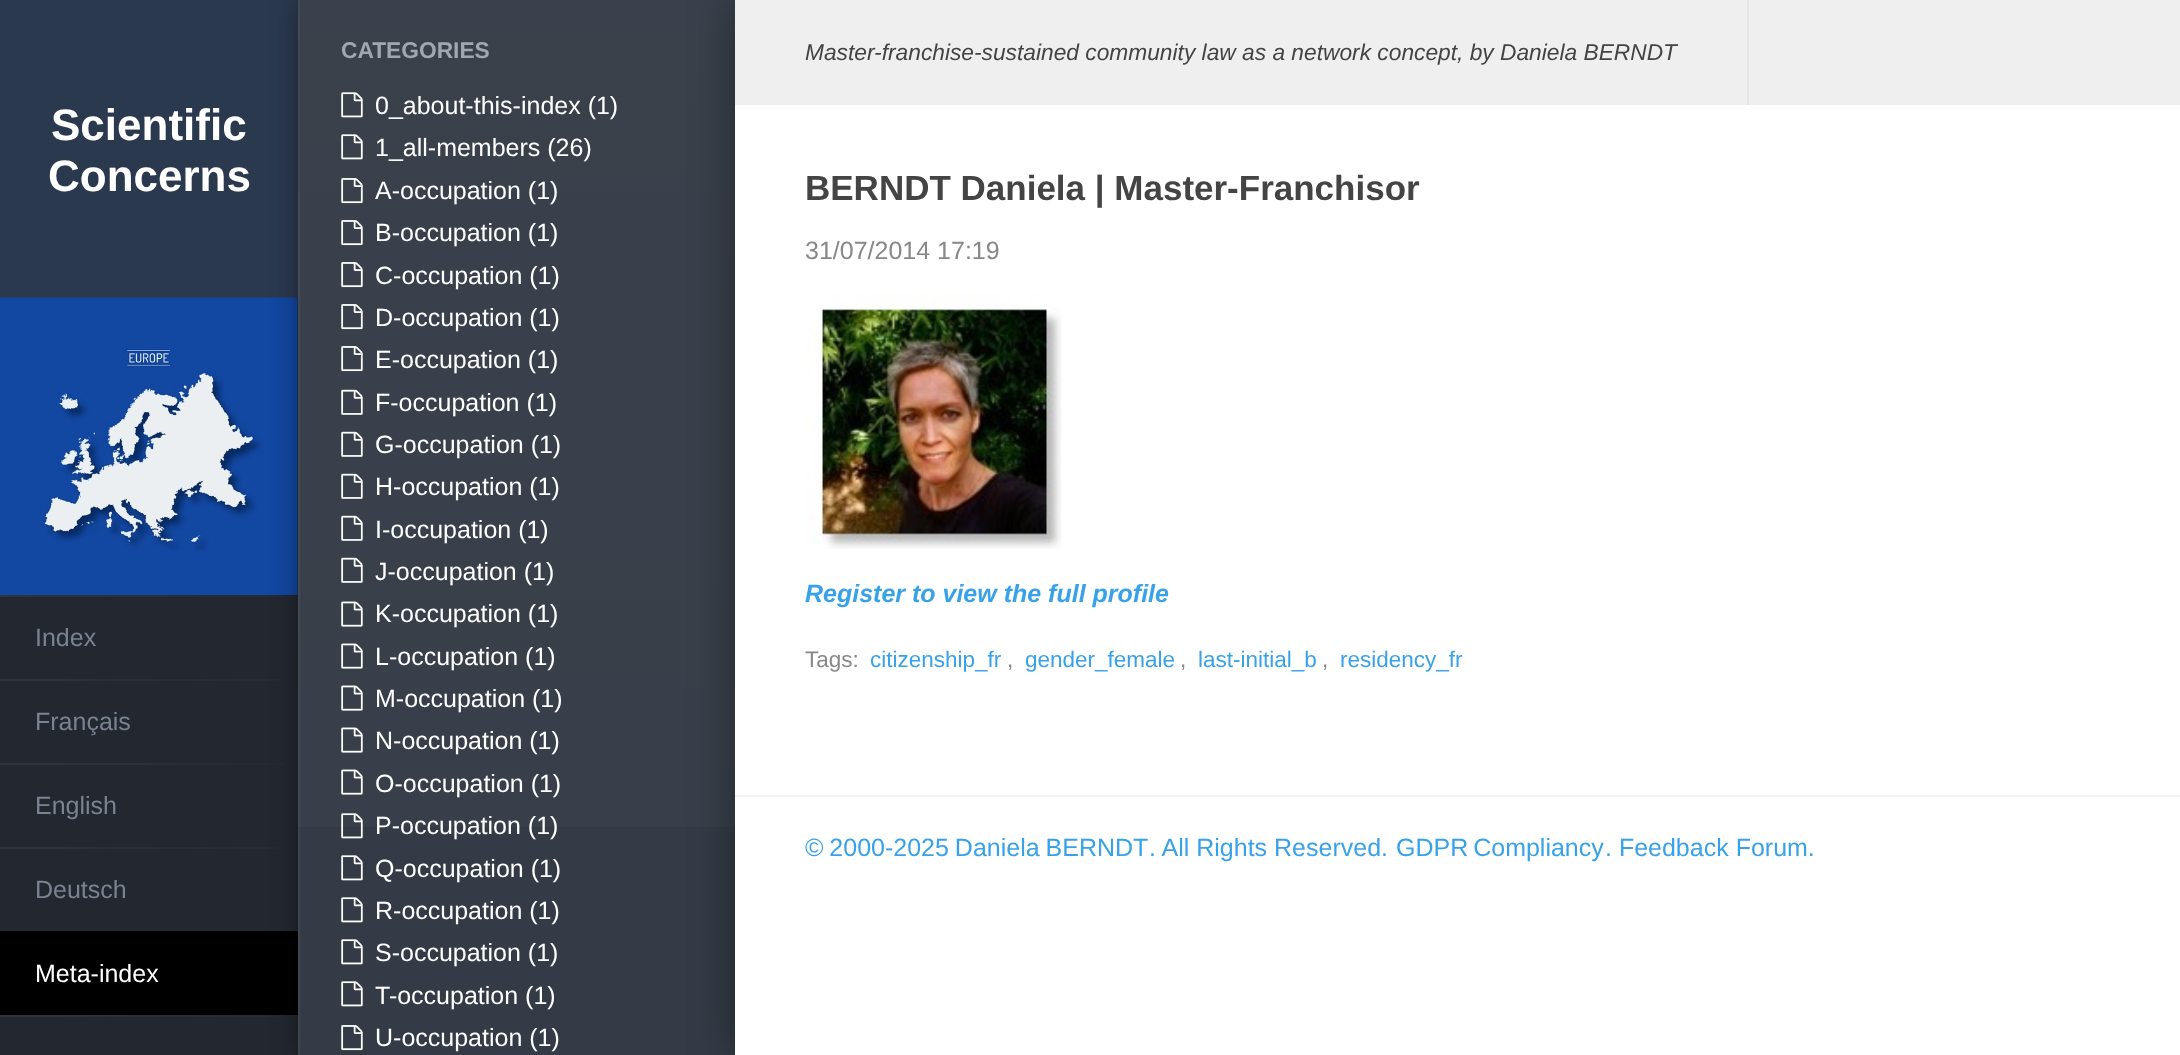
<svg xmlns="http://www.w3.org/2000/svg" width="2180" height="1055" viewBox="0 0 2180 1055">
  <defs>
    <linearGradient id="g1" gradientUnits="userSpaceOnUse" x1="298" y1="596" x2="0" y2="596"><stop offset="0" stop-color="rgb(37,41,49)"/><stop offset="1" stop-color="rgb(48,52,59)"/></linearGradient>
    <linearGradient id="g2" gradientUnits="userSpaceOnUse" x1="298" y1="680" x2="0" y2="680"><stop offset="0" stop-color="rgb(37,41,49)"/><stop offset="1" stop-color="rgb(48,52,59)"/></linearGradient>
    <linearGradient id="g3" gradientUnits="userSpaceOnUse" x1="298" y1="764" x2="0" y2="764"><stop offset="0" stop-color="rgb(37,41,49)"/><stop offset="1" stop-color="rgb(48,52,59)"/></linearGradient>
    <linearGradient id="g4" gradientUnits="userSpaceOnUse" x1="298" y1="848" x2="0" y2="848"><stop offset="0" stop-color="rgb(37,41,49)"/><stop offset="1" stop-color="rgb(48,52,59)"/></linearGradient>
    <linearGradient id="g5" gradientUnits="userSpaceOnUse" x1="298" y1="1016" x2="0" y2="1016"><stop offset="0" stop-color="rgb(37,41,49)"/><stop offset="1" stop-color="rgb(48,52,59)"/></linearGradient>
    <linearGradient id="g6" gradientUnits="userSpaceOnUse" x1="516" y1="0" x2="516" y2="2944"><stop offset="0" stop-color="rgb(255,255,255)" stop-opacity="0.03"/><stop offset="1" stop-color="rgb(255,255,255)" stop-opacity="0"/></linearGradient>
  </defs>
  <rect width="100%" height="100%" fill="rgb(35,39,47)"/>
  <rect x="0" y="0" width="298" height="298" fill="rgb(43,57,79)"/>
  <image x="0" y="297" width="298" height="298" href="pic1.png"/>
  <rect x="0" y="595" width="284" height="2" fill="url(#g1)"/>
  <rect x="0" y="679" width="284" height="2" fill="url(#g2)"/>
  <rect x="0" y="763" width="284" height="2" fill="url(#g3)"/>
  <rect x="0" y="847" width="284" height="2" fill="url(#g4)"/>
  <rect x="0" y="931" width="298" height="84" fill="rgb(0,0,0)"/>
  <rect x="0" y="1015" width="284" height="2" fill="url(#g5)"/>
  <rect x="298" y="0" width="437" height="1055" fill="rgba(0,0,0,0.4)" filter="blur(13px)"/>
  <rect x="300" y="0" width="435" height="1055" fill="rgb(52,59,70)"/>
  <rect x="298" y="0" width="2" height="1055" fill="rgb(62,69,79)"/>
  <rect x="298" y="0" width="437" height="827" fill="url(#g6)"/>
  <rect x="735" y="0" width="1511" height="1055" fill="rgba(0,0,0,0.4)" filter="blur(22px)"/>
  <rect x="735" y="105" width="1445" height="950" fill="rgb(255,255,255)"/>
  <g font-family="Liberation Sans" font-size="44" font-weight="bold" fill="rgb(255,255,255)">
    <text x="51" y="140">Scientific</text>
    <text x="48" y="191">Concerns</text>
  </g>
  <g font-family="Liberation Sans" font-size="25" fill="rgb(122,131,146)">
    <text x="35" y="646">Index</text>
    <text x="35" y="730">Français</text>
    <text x="35" y="814">English</text>
    <text x="35" y="898">Deutsch</text>
  </g>
  <text x="35" y="982" font-family="Liberation Sans" font-size="25" fill="rgb(255,255,255)">Meta-index</text>
  <text x="341" y="58" font-family="Liberation Sans" font-size="22.75" font-weight="bold" fill="rgb(161,167,175)">CATEGORIES</text>
  <image x="341" y="92" width="22" height="26" href="pic2.png"/>
  <text x="375" y="114" font-family="Liberation Sans" font-size="25" fill="rgb(255,255,255)">0_about-this-index (1)</text>
  <image x="341" y="134" width="22" height="26" href="pic2.png"/>
  <text x="375" y="156" font-family="Liberation Sans" font-size="25" fill="rgb(255,255,255)">1_all-members (26)</text>
  <image x="341" y="178" width="22" height="26" href="pic3.png"/>
  <text x="375" y="199" font-family="Liberation Sans" font-size="25" fill="rgb(255,255,255)">A-occupation (1)</text>
  <image x="341" y="220" width="22" height="26" href="pic3.png"/>
  <text x="375" y="241" font-family="Liberation Sans" font-size="25" fill="rgb(255,255,255)">B-occupation (1)</text>
  <image x="341" y="262" width="22" height="26" href="pic3.png"/>
  <text x="375" y="284" font-family="Liberation Sans" font-size="25" fill="rgb(255,255,255)">C-occupation (1)</text>
  <image x="341" y="304" width="22" height="26" href="pic3.png"/>
  <text x="375" y="326" font-family="Liberation Sans" font-size="25" fill="rgb(255,255,255)">D-occupation (1)</text>
  <image x="341" y="346" width="22" height="26" href="pic3.png"/>
  <text x="375" y="368" font-family="Liberation Sans" font-size="25" fill="rgb(255,255,255)">E-occupation (1)</text>
  <image x="341" y="389" width="22" height="26" href="pic4.png"/>
  <text x="375" y="411" font-family="Liberation Sans" font-size="25" fill="rgb(255,255,255)">F-occupation (1)</text>
  <image x="341" y="431" width="22" height="26" href="pic5.png"/>
  <text x="375" y="453" font-family="Liberation Sans" font-size="25" fill="rgb(255,255,255)">G-occupation (1)</text>
  <image x="341" y="473" width="22" height="26" href="pic6.png"/>
  <text x="375" y="495" font-family="Liberation Sans" font-size="25" fill="rgb(255,255,255)">H-occupation (1)</text>
  <image x="341" y="515" width="22" height="26" href="pic6.png"/>
  <text x="375" y="538" font-family="Liberation Sans" font-size="25" fill="rgb(255,255,255)">I-occupation (1)</text>
  <image x="341" y="557" width="22" height="26" href="pic6.png"/>
  <text x="375" y="580" font-family="Liberation Sans" font-size="25" fill="rgb(255,255,255)">J-occupation (1)</text>
  <image x="341" y="601" width="22" height="26" href="pic7.png"/>
  <text x="375" y="622" font-family="Liberation Sans" font-size="25" fill="rgb(255,255,255)">K-occupation (1)</text>
  <image x="341" y="643" width="22" height="26" href="pic7.png"/>
  <text x="375" y="665" font-family="Liberation Sans" font-size="25" fill="rgb(255,255,255)">L-occupation (1)</text>
  <image x="341" y="685" width="22" height="26" href="pic7.png"/>
  <text x="375" y="707" font-family="Liberation Sans" font-size="25" fill="rgb(255,255,255)">M-occupation (1)</text>
  <image x="341" y="727" width="22" height="26" href="pic7.png"/>
  <text x="375" y="749" font-family="Liberation Sans" font-size="25" fill="rgb(255,255,255)">N-occupation (1)</text>
  <image x="341" y="769" width="22" height="26" href="pic7.png"/>
  <text x="375" y="792" font-family="Liberation Sans" font-size="25" fill="rgb(255,255,255)">O-occupation (1)</text>
  <image x="341" y="813" width="22" height="26" href="pic8.png"/>
  <text x="375" y="834" font-family="Liberation Sans" font-size="25" fill="rgb(255,255,255)">P-occupation (1)</text>
  <image x="341" y="855" width="22" height="26" href="pic9.png"/>
  <text x="375" y="877" font-family="Liberation Sans" font-size="25" fill="rgb(255,255,255)">Q-occupation (1)</text>
  <image x="341" y="897" width="22" height="26" href="pic9.png"/>
  <text x="375" y="919" font-family="Liberation Sans" font-size="25" fill="rgb(255,255,255)">R-occupation (1)</text>
  <image x="341" y="939" width="22" height="26" href="pic9.png"/>
  <text x="375" y="961" font-family="Liberation Sans" font-size="25" fill="rgb(255,255,255)">S-occupation (1)</text>
  <image x="341" y="981" width="22" height="26" href="pic9.png"/>
  <text x="375" y="1004" font-family="Liberation Sans" font-size="25" fill="rgb(255,255,255)">T-occupation (1)</text>
  <image x="341" y="1025" width="22" height="26" href="pic10.png"/>
  <text x="375" y="1046" font-family="Liberation Sans" font-size="25" fill="rgb(255,255,255)">U-occupation (1)</text>
  <rect x="735" y="0" width="1445" height="105" fill="rgb(239,239,239)"/>
  <rect x="1747" y="0" width="2" height="105" fill="rgb(229,229,229)"/>
  <text x="805" y="60" font-family="Liberation Sans" font-size="22.75" font-style="italic" fill="rgb(68,68,68)">Master-franchise-sustained community law as a network concept, by Daniela BERNDT</text>
  <rect x="735" y="795" width="1445" height="2" fill="rgb(242,242,242)"/>
  <text x="805" y="200" font-family="Liberation Sans" font-size="35" font-weight="bold" fill="rgb(68,68,68)">BERNDT Daniela | Master-Franchisor</text>
  <text x="805" y="259" font-family="Liberation Sans" font-size="25" fill="rgb(136,136,136)">31/07/2014 17:19</text>
  <image x="805" y="293" width="257" height="256" href="pic11.png"/>
  <text x="805" y="602" font-family="Liberation Sans" font-size="25" font-weight="bold" font-style="italic" fill="rgb(56,162,233)">Register to view the full profile</text>
  <text x="805" y="667" font-family="Liberation Sans" font-size="22.5" fill="rgb(136,136,136)">Tags:</text>
  <text x="870" y="667" font-family="Liberation Sans" font-size="22.5" fill="rgb(56,162,233)">citizenship_fr</text>
  <text x="1007" y="667" font-family="Liberation Sans" font-size="22.5" fill="rgb(136,136,136)">,</text>
  <text x="1025" y="667" font-family="Liberation Sans" font-size="22.5" fill="rgb(56,162,233)">gender_female</text>
  <text x="1180" y="667" font-family="Liberation Sans" font-size="22.5" fill="rgb(136,136,136)">,</text>
  <text x="1198" y="667" font-family="Liberation Sans" font-size="22.5" fill="rgb(56,162,233)">last-initial_b</text>
  <text x="1322" y="667" font-family="Liberation Sans" font-size="22.5" fill="rgb(136,136,136)">,</text>
  <text x="1340" y="667" font-family="Liberation Sans" font-size="22.5" fill="rgb(56,162,233)">residency_fr</text>
  <g font-family="Liberation Sans" font-size="25" fill="rgb(56,162,233)">
    <text x="805" y="856" word-spacing="-1">© 2000-2025 Daniela BERNDT</text>
    <text x="1149" y="856">. All Rights Reserved.</text>
    <text x="1396" y="856" word-spacing="-2">GDPR Compliancy</text>
    <text x="1605" y="856">. Feedback Forum.</text>
  </g>
</svg>
